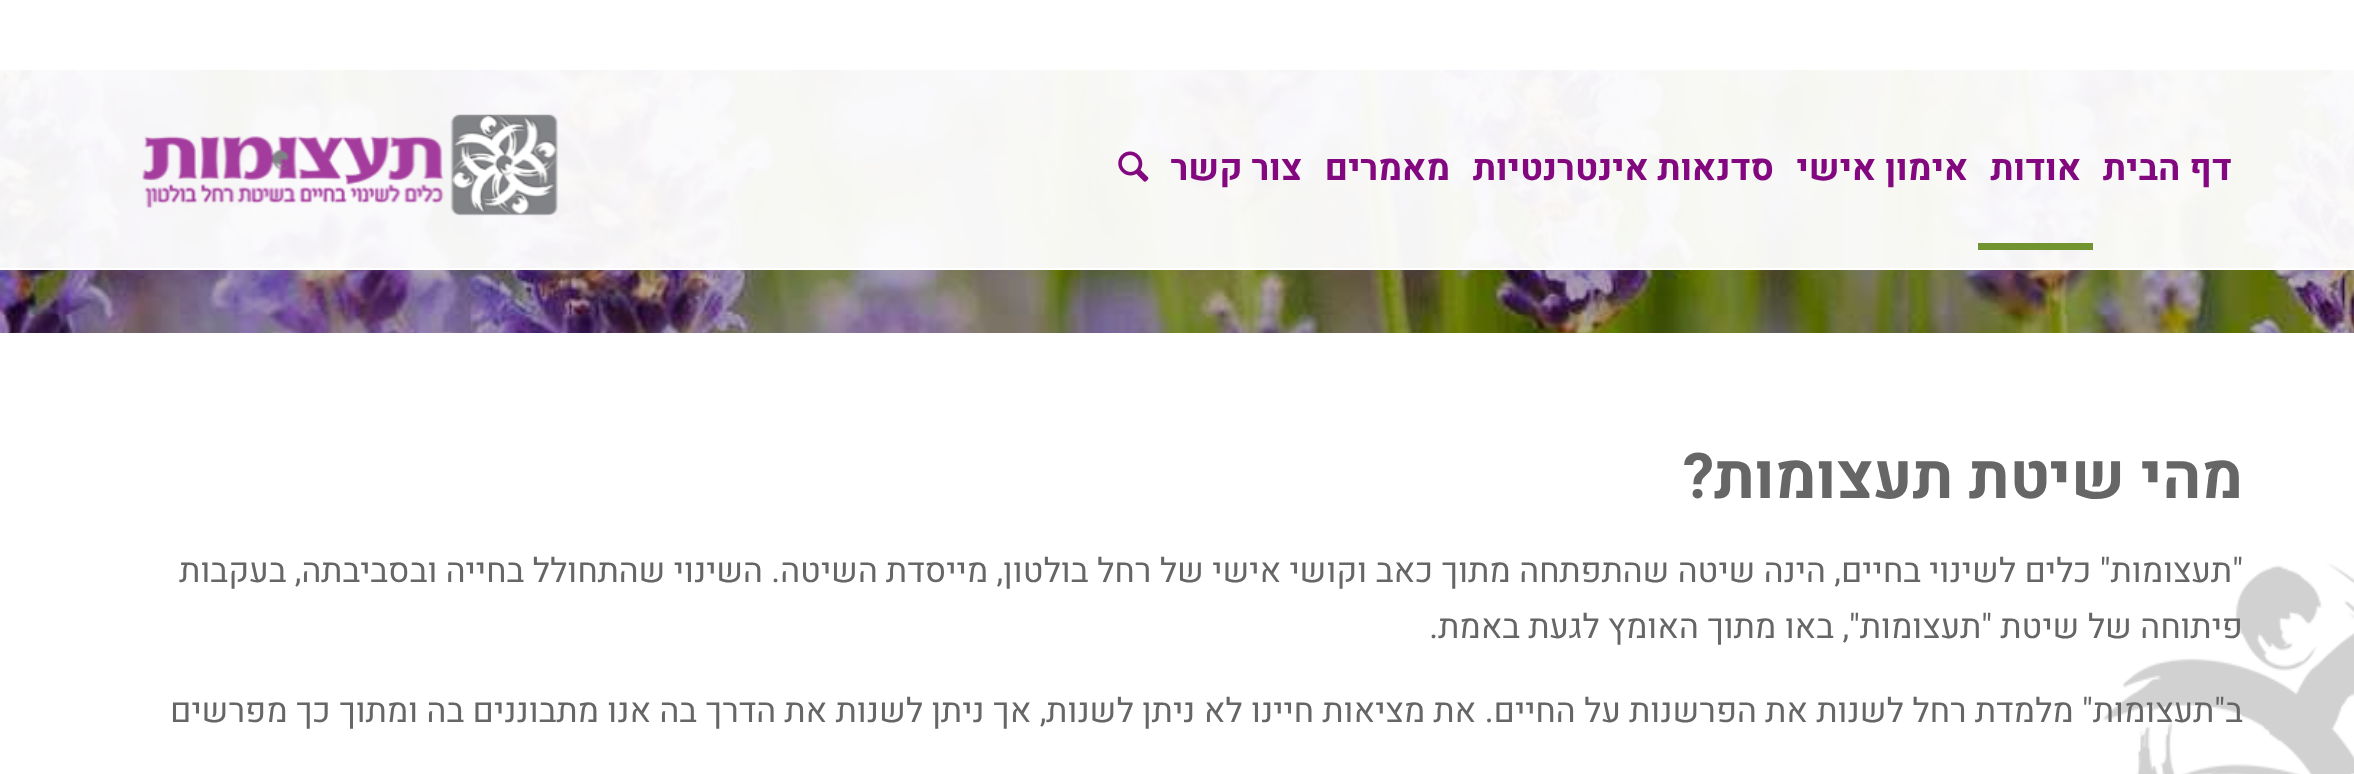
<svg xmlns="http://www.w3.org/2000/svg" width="2354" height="774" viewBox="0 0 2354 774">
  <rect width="100%" height="100%" fill="rgb(255,255,255)"/>
  <image x="0" y="70" width="2354" height="263" href="pic3.png"/>
  <rect x="0" y="70" width="2354" height="198" fill="rgba(255,255,255,0.95)"/>
  <rect x="0" y="268" width="2354" height="2" fill="rgb(255,255,255)"/>
  <g font-family="Heebo" font-size="36" font-weight="bold" direction="rtl" fill="rgb(131,8,127)">
    <text x="2232" y="180">דף הבית</text>
    <text x="2081" y="180">אודות</text>
  </g>
  <rect x="1978" y="243" width="115" height="7" fill="rgb(113,148,48)"/>
  <g font-family="Heebo" font-size="36" font-weight="bold" direction="rtl" fill="rgb(131,8,127)">
    <text x="1968" y="180">אימון אישי</text>
    <text x="1774" y="180">סדנאות אינטרנטיות</text>
    <text x="1450" y="180">מאמרים</text>
    <text x="1302" y="180">צור קשר</text>
  </g>
  <image x="1118" y="151" width="31" height="31" href="pic1.png"/>
  <image x="142" y="114" width="416" height="102" href="pic2.png"/>
  <image x="2103" y="563" width="251" height="211" href="pic4.png"/>
  <text x="2243" y="498" font-family="Heebo" font-size="63" font-weight="bold" direction="rtl" fill="rgb(102,102,102)">מהי שיטת תעצומות?</text>
  <g font-family="Heebo" font-size="33.75" direction="rtl" fill="rgb(102,102,102)">
    <text>
      <tspan x="2243" y="582">"תעצומות" כלים לשינוי בחיים, הינה שיטה שהתפתחה מתוך כאב וקושי אישי של רחל בולטון, מייסדת השיטה. השינוי שהתחולל בחייה ובסביבתה, בעקבות</tspan>
      <tspan x="2243" y="638">פיתוחה של שיטת "תעצומות", באו מתוך האומץ לגעת באמת.</tspan>
    </text>
    <text x="2243" y="722">ב"תעצומות" מלמדת רחל לשנות את הפרשנות על החיים. את מציאות חיינו לא ניתן לשנות, אך ניתן לשנות את הדרך בה אנו מתבוננים בה ומתוך כך מפרשים</text>
  </g>
</svg>
